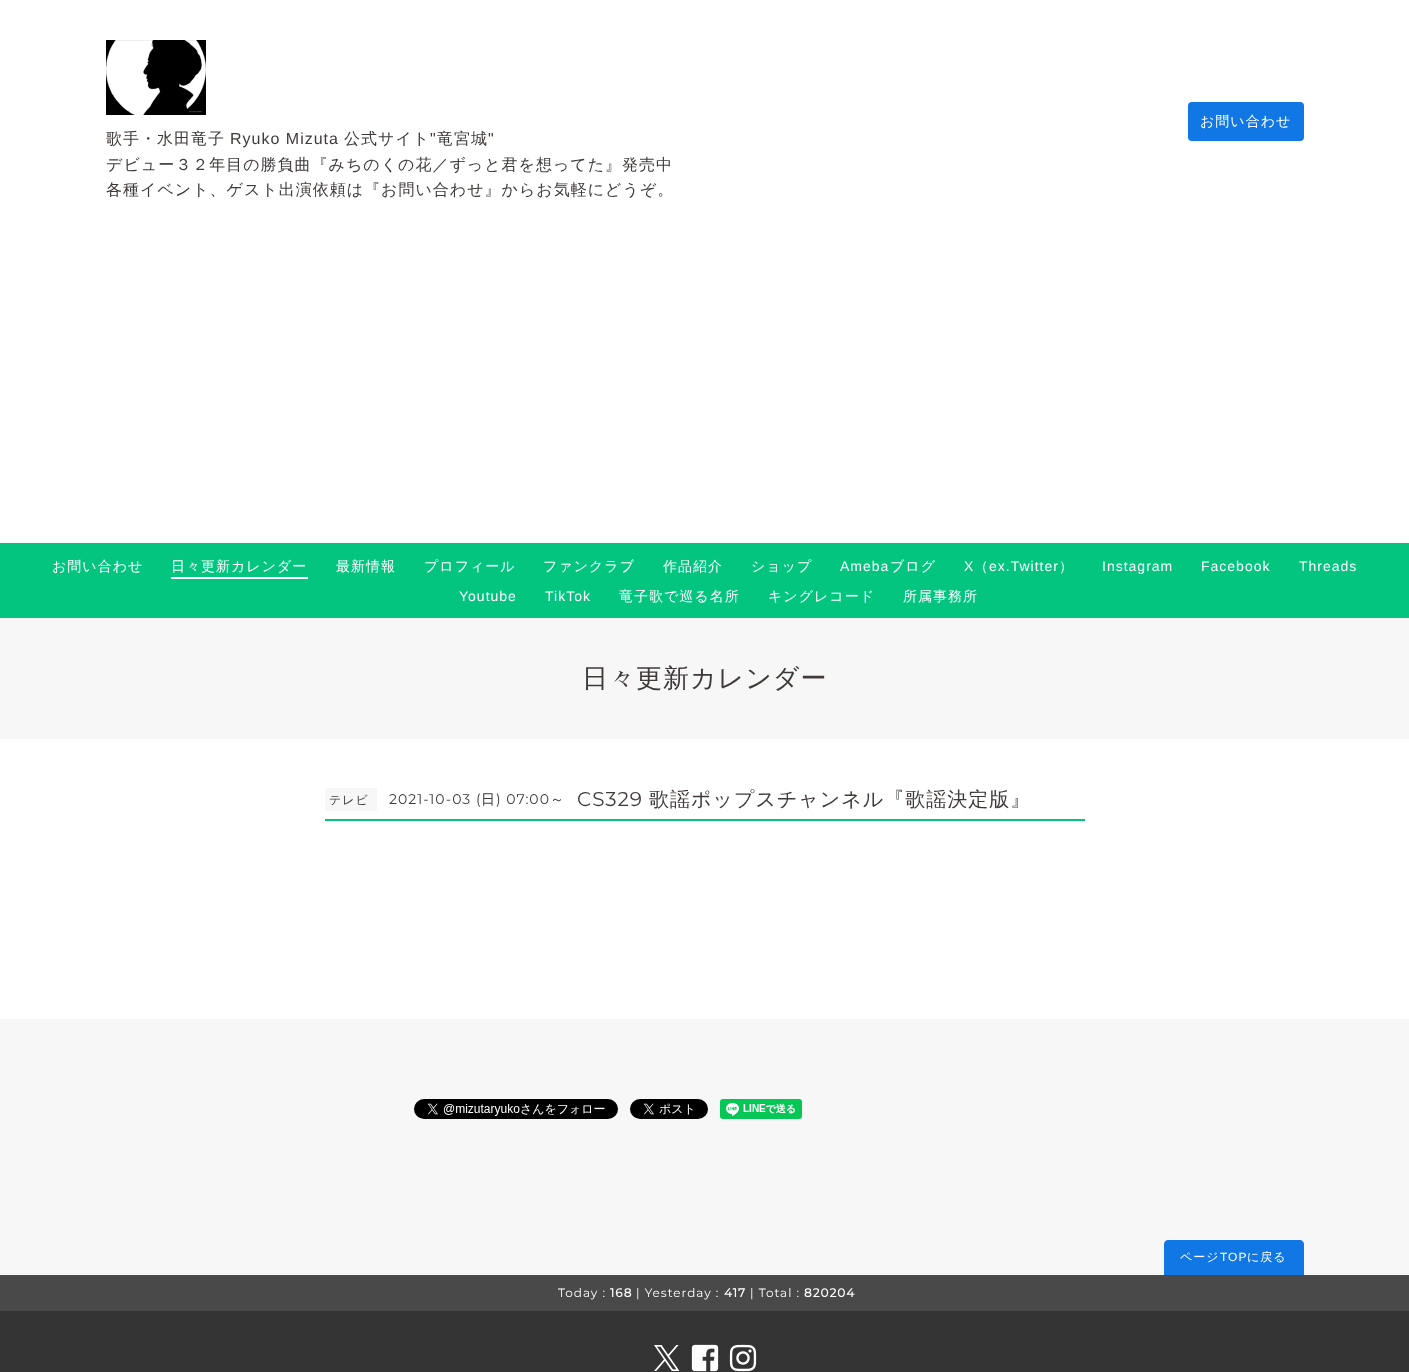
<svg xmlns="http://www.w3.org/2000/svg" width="1409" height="1372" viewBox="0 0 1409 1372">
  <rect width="100%" height="100%" fill="rgb(255,255,255)"/>
  <rect x="1188" y="102" width="116" height="39" rx="4" fill="rgb(17,119,228)"/>
  <text x="1200" y="126" font-family="WenQuanYi Zen Hei" font-size="14" font-weight="500" letter-spacing="1" fill="rgb(255,255,255)">お問い合わせ</text>
  <image x="106" y="40" width="100" height="75" href="pic1.png"/>
  <text x="106" y="144" font-family="WenQuanYi Zen Hei" font-size="16" font-weight="500" letter-spacing="1" fill="rgb(63,58,57)">歌手・水田竜子</text>
  <text x="230" y="144" font-family="Liberation Sans" font-size="16" letter-spacing="1" fill="rgb(63,58,57)">Ryuko Mizuta</text>
  <text x="344" y="144" font-family="WenQuanYi Zen Hei" font-size="16" font-weight="500" letter-spacing="1" fill="rgb(63,58,57)">公式サイト</text>
  <text x="430" y="144" font-family="Liberation Sans" font-size="16" letter-spacing="1" fill="rgb(63,58,57)">"</text>
  <text x="437" y="144" font-family="WenQuanYi Zen Hei" font-size="16" font-weight="500" letter-spacing="1" fill="rgb(63,58,57)">竜宮城</text>
  <text x="488" y="144" font-family="Liberation Sans" font-size="16" letter-spacing="1" fill="rgb(63,58,57)">"</text>
  <g font-family="WenQuanYi Zen Hei" font-size="16" font-weight="500" letter-spacing="1" fill="rgb(63,58,57)">
    <text>
      <tspan x="106" y="170">デビュー３２年目の勝負曲『みちのくの花／ずっと君を想ってた』発売中</tspan>
      <tspan x="106" y="195">各種イベント、ゲスト出演依頼は『お問い合わせ』からお気軽にどうぞ。</tspan>
    </text>
  </g>
  <rect x="0" y="543" width="1409" height="75" fill="rgb(3,197,128)"/>
  <g font-family="WenQuanYi Zen Hei" font-size="14" font-weight="500" letter-spacing="1" fill="rgb(255,255,255)">
    <text x="52" y="571">お問い合わせ</text>
    <text x="171" y="571">日々更新カレンダー</text>
  </g>
  <rect x="171" y="577" width="137" height="2" fill="rgb(255,255,255)"/>
  <g font-family="WenQuanYi Zen Hei" font-size="14" font-weight="500" letter-spacing="1" fill="rgb(255,255,255)">
    <text x="336" y="571">最新情報</text>
    <text x="424" y="571">プロフィール</text>
    <text x="543" y="571">ファンクラブ</text>
    <text x="663" y="571">作品紹介</text>
    <text x="751" y="571">ショップ</text>
  </g>
  <text x="840" y="571" font-family="Liberation Sans" font-size="14" letter-spacing="1" fill="rgb(255,255,255)">Ameba</text>
  <text x="890" y="571" font-family="WenQuanYi Zen Hei" font-size="14" font-weight="500" letter-spacing="1" fill="rgb(255,255,255)">ブログ</text>
  <text x="964" y="571" font-family="Liberation Sans" font-size="14" letter-spacing="1" fill="rgb(255,255,255)">X</text>
  <text x="974" y="571" font-family="WenQuanYi Zen Hei" font-size="14" font-weight="500" letter-spacing="1" fill="rgb(255,255,255)">（</text>
  <text x="989" y="571" font-family="Liberation Sans" font-size="14" letter-spacing="1" fill="rgb(255,255,255)">ex.Twitter</text>
  <text x="1059" y="571" font-family="WenQuanYi Zen Hei" font-size="14" font-weight="500" letter-spacing="1" fill="rgb(255,255,255)">）</text>
  <g font-family="Liberation Sans" font-size="14" letter-spacing="1" fill="rgb(255,255,255)">
    <text x="1102" y="571">Instagram</text>
    <text x="1201" y="571">Facebook</text>
    <text x="1299" y="571">Threads</text>
    <text x="459" y="601">Youtube</text>
    <text x="545" y="601">TikTok</text>
  </g>
  <g font-family="WenQuanYi Zen Hei" font-size="14" font-weight="500" letter-spacing="1" fill="rgb(255,255,255)">
    <text x="619" y="601">竜子歌で巡る名所</text>
    <text x="768" y="601">キングレコード</text>
    <text x="903" y="601">所属事務所</text>
  </g>
  <rect x="0" y="618" width="1409" height="121" fill="rgb(247,247,247)"/>
  <text x="582" y="687" font-family="WenQuanYi Zen Hei" font-size="26" font-weight="500" letter-spacing="1" fill="rgb(63,58,57)">日々更新カレンダー</text>
  <rect x="325" y="819" width="760" height="2" fill="rgb(3,197,128)"/>
  <rect x="325" y="788" width="52" height="23" fill="rgb(247,247,247)"/>
  <text x="329" y="804" font-family="WenQuanYi Zen Hei" font-size="12" font-weight="500" letter-spacing="1" fill="rgb(63,58,57)">テレビ</text>
  <text x="389" y="804" font-family="Montserrat" font-size="14" font-weight="100" letter-spacing="1" fill="rgb(63,58,57)">2021-10-03 (</text>
  <text x="481" y="804" font-family="WenQuanYi Zen Hei" font-size="14" font-weight="500" letter-spacing="1" fill="rgb(63,58,57)">日</text>
  <text x="496" y="804" font-family="Montserrat" font-size="14" font-weight="100" letter-spacing="1" fill="rgb(63,58,57)">) 07:00</text>
  <text x="550" y="804" font-family="WenQuanYi Zen Hei" font-size="14" font-weight="500" letter-spacing="1" fill="rgb(63,58,57)">～</text>
  <text x="577" y="806" font-family="Montserrat" font-size="20" font-weight="100" letter-spacing="1" fill="rgb(63,58,57)">CS329</text>
  <text x="649" y="806" font-family="WenQuanYi Zen Hei" font-size="20" font-weight="500" letter-spacing="1" fill="rgb(63,58,57)">歌謡ポップスチャンネル『歌謡決定版』</text>
  <rect x="0" y="1019" width="1409" height="256" fill="rgb(247,247,247)"/>
  <image x="414" y="1099" width="204" height="20" href="pic2.png"/>
  <image x="630" y="1099" width="78" height="20" href="pic3.png"/>
  <image x="720" y="1099" width="82" height="20" href="pic4.png"/>
  <rect x="0" y="1311" width="1409" height="61" fill="rgb(51,51,51)"/>
  <path d="M1168 1240H1300C1302 1240 1304 1242 1304 1244V1275H1164V1244C1164 1242 1166 1240 1168 1240Z" fill="rgb(17,119,228)"/>
  <text x="1180" y="1261" font-family="WenQuanYi Zen Hei" font-size="12" font-weight="500" letter-spacing="1" fill="rgb(255,255,255)">ページ</text>
  <text x="1220" y="1261" font-family="Liberation Sans" font-size="12" letter-spacing="1" fill="rgb(255,255,255)">TOP</text>
  <text x="1247" y="1261" font-family="WenQuanYi Zen Hei" font-size="12" font-weight="500" letter-spacing="1" fill="rgb(255,255,255)">に戻る</text>
  <rect x="0" y="1275" width="1409" height="36" fill="rgb(73,73,73)"/>
  <text x="558" y="1297" font-family="Montserrat" font-size="12" font-weight="100" letter-spacing="1" fill="rgb(255,255,255)">Today :</text>
  <text x="610" y="1297" font-family="Montserrat" font-size="12" font-weight="bold" letter-spacing="1" fill="rgb(255,255,255)">168</text>
  <text x="636" y="1297" font-family="Montserrat" font-size="12" font-weight="100" letter-spacing="1" fill="rgb(255,255,255)">| Yesterday :</text>
  <text x="724" y="1297" font-family="Montserrat" font-size="12" font-weight="bold" letter-spacing="1" fill="rgb(255,255,255)">417</text>
  <text x="750" y="1297" font-family="Montserrat" font-size="12" font-weight="100" letter-spacing="1" fill="rgb(255,255,255)">| Total :</text>
  <text x="804" y="1297" font-family="Montserrat" font-size="12" font-weight="bold" letter-spacing="1" fill="rgb(255,255,255)">820204</text>
  <image x="654" y="1345" width="26" height="26" href="pic5.png"/>
  <image x="691" y="1344" width="28" height="28" href="pic6.png"/>
  <image x="729" y="1344" width="28" height="28" href="pic7.png"/>
</svg>
